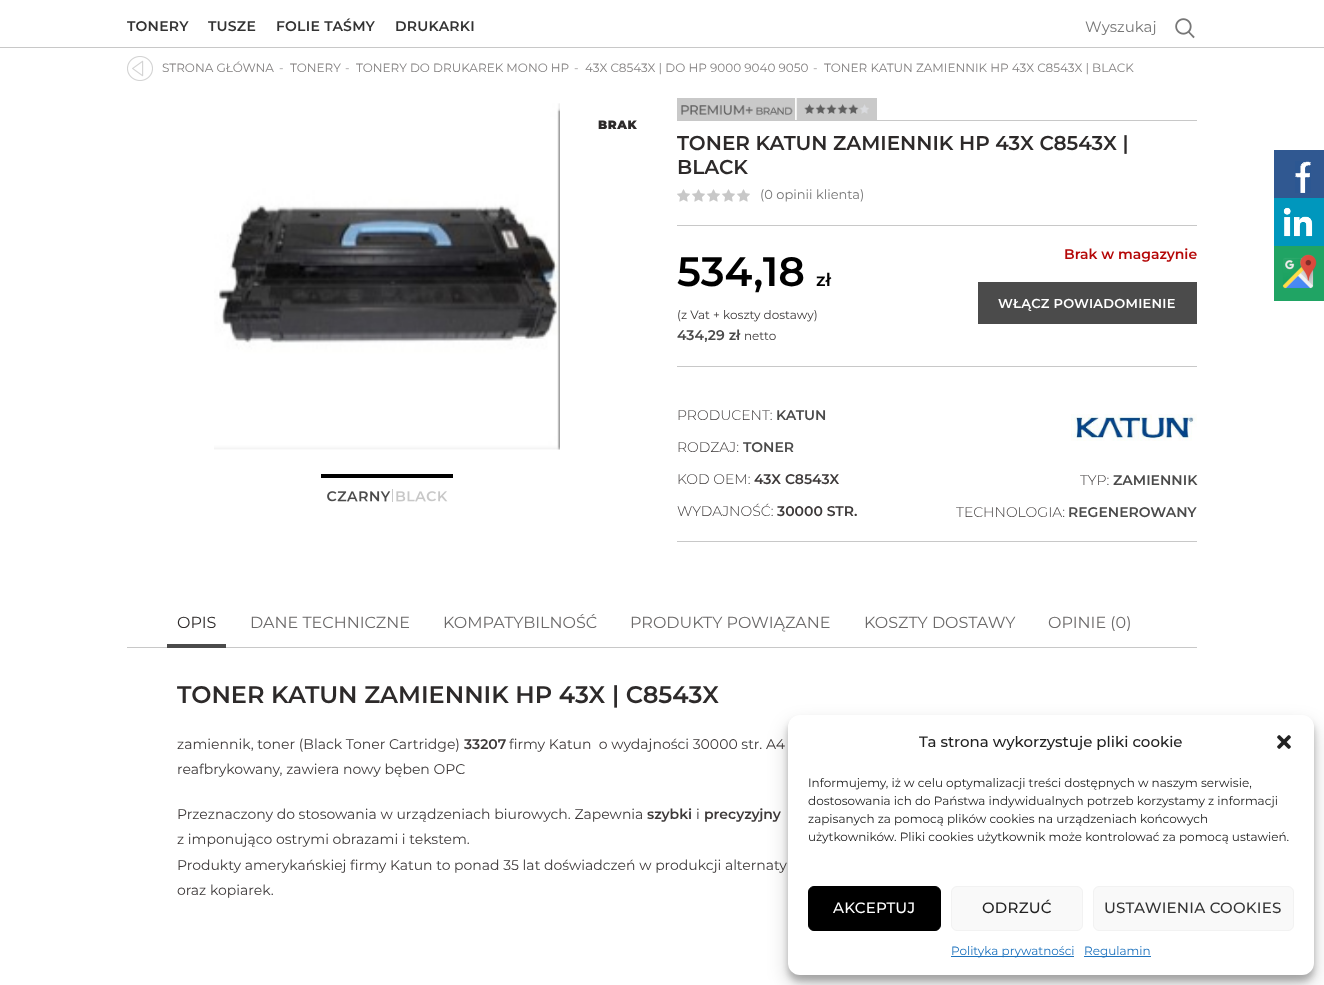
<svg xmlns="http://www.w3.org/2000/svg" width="1324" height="985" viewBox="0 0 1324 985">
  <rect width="100%" height="100%" fill="rgb(255,255,255)"/>
  <rect x="0" y="47" width="1324" height="1" fill="rgb(200,200,200)"/>
  <g font-family="Montserrat" font-size="14" font-weight="600" letter-spacing="0.25" fill="rgb(51,51,51)">
    <text x="127" y="31">TONERY</text>
    <text x="208" y="31">TUSZE</text>
    <text x="276" y="31">FOLIE TAŚMY</text>
    <text x="395" y="31">DRUKARKI</text>
  </g>
  <text x="1085" y="32" font-family="Montserrat" font-size="15" fill="rgb(119,119,119)">Wyszukaj</text>
  <image x="1175" y="18" width="20" height="21" href="pic1.png"/>
  <image x="127" y="56" width="26" height="25" href="pic2.png"/>
  <text x="162" y="72" font-family="Montserrat" font-size="12" fill="rgb(131,128,128)">STRONA GŁÓWNA</text>
  <text x="279" y="72" font-family="Montserrat" font-size="12" fill="rgb(156,154,154)">-</text>
  <text x="290" y="72" font-family="Montserrat" font-size="12" fill="rgb(131,128,128)">TONERY</text>
  <text x="345" y="72" font-family="Montserrat" font-size="12" fill="rgb(156,154,154)">-</text>
  <text x="356" y="72" font-family="Montserrat" font-size="12" fill="rgb(131,128,128)">TONERY DO DRUKAREK MONO HP</text>
  <text x="574" y="72" font-family="Montserrat" font-size="12" fill="rgb(156,154,154)">-</text>
  <text x="585" y="72" font-family="Montserrat" font-size="12" fill="rgb(131,128,128)">43X C8543X | DO HP 9000 9040 9050</text>
  <text x="813" y="72" font-family="Montserrat" font-size="12" fill="rgb(156,154,154)">-</text>
  <text x="824" y="72" font-family="Montserrat" font-size="12" fill="rgb(131,128,128)">TONER KATUN ZAMIENNIK HP 43X C8543X | BLACK</text>
  <image x="214" y="103" width="346" height="347" href="pic3.png"/>
  <text x="598" y="129" font-family="Montserrat" font-size="12" font-weight="900" letter-spacing="0.5" fill="rgb(45,42,42)">BRAK</text>
  <image x="321" y="474" width="132" height="28" href="pic4.png"/>
  <rect x="677" y="120" width="520" height="1" fill="rgb(200,200,200)"/>
  <image x="677" y="98" width="200" height="22" href="pic5.png"/>
  <g font-family="Montserrat" font-size="20" font-weight="600" fill="rgb(45,42,42)">
    <text>
      <tspan x="677" y="150">TONER KATUN ZAMIENNIK HP 43X C8543X |</tspan>
      <tspan x="677" y="174">BLACK</tspan>
    </text>
  </g>
  <image x="677" y="189" width="73" height="13" href="pic6.png"/>
  <text x="760" y="199" font-family="Montserrat" font-size="13" fill="rgb(119,119,119)">(0 opinii klienta)</text>
  <rect x="677" y="225" width="520" height="1" fill="rgb(200,200,200)"/>
  <rect x="677" y="366" width="520" height="1" fill="rgb(200,200,200)"/>
  <text x="677" y="286" font-family="Montserrat" font-size="41" font-weight="600" fill="rgb(0,0,0)">534,18</text>
  <text x="816" y="286" font-family="Montserrat" font-size="18" font-weight="600" fill="rgb(0,0,0)">zł</text>
  <text x="677" y="319" font-family="Montserrat" font-size="12" fill="rgb(61,57,57)">(z Vat + koszty dostawy)</text>
  <text x="677" y="340" font-family="Montserrat" font-size="14" font-weight="600" fill="rgb(75,75,75)">434,29 zł</text>
  <text x="744" y="340" font-family="Montserrat" font-size="12" fill="rgb(61,57,57)">netto</text>
  <text x="1064" y="259" font-family="Montserrat" font-size="14" font-weight="600" fill="rgb(181,8,8)">Brak w magazynie</text>
  <rect x="978" y="282" width="219" height="42" fill="rgb(75,75,75)"/>
  <text x="998" y="308" font-family="Montserrat" font-size="13" font-weight="600" letter-spacing="0.25" fill="rgb(255,255,255)">WŁĄCZ POWIADOMIENIE</text>
  <rect x="677" y="541" width="520" height="1" fill="rgb(200,200,200)"/>
  <text x="677" y="420" font-family="Montserrat" font-size="14" font-weight="300" fill="rgb(61,57,57)">PRODUCENT:</text>
  <text x="776" y="420" font-family="Montserrat" font-size="14" font-weight="600" fill="rgb(75,75,75)">KATUN</text>
  <text x="677" y="452" font-family="Montserrat" font-size="14" font-weight="300" fill="rgb(61,57,57)">RODZAJ:</text>
  <text x="743" y="452" font-family="Montserrat" font-size="14" font-weight="600" fill="rgb(75,75,75)">TONER</text>
  <text x="677" y="484" font-family="Montserrat" font-size="14" font-weight="300" fill="rgb(61,57,57)">KOD OEM:</text>
  <text x="754" y="484" font-family="Montserrat" font-size="14" font-weight="600" fill="rgb(61,57,57)">43X C8543X</text>
  <text x="677" y="516" font-family="Montserrat" font-size="14" font-weight="300" fill="rgb(61,57,57)">WYDAJNOŚĆ:</text>
  <text x="777" y="516" font-family="Montserrat" font-size="14" font-weight="600" fill="rgb(61,57,57)">30000 STR.</text>
  <image x="1071" y="414" width="126" height="27" href="pic7.png"/>
  <text x="1080" y="485" font-family="Montserrat" font-size="14" font-weight="300" fill="rgb(61,57,57)">TYP:</text>
  <text x="1113" y="485" font-family="Montserrat" font-size="14" font-weight="600" fill="rgb(75,75,75)">ZAMIENNIK</text>
  <text x="956" y="517" font-family="Montserrat" font-size="14" font-weight="300" fill="rgb(61,57,57)">TECHNOLOGIA:</text>
  <text x="1068" y="517" font-family="Montserrat" font-size="14" font-weight="600" fill="rgb(75,75,75)">REGENEROWANY</text>
  <rect x="127" y="647" width="1070" height="1" fill="rgb(200,200,200)"/>
  <text x="177" y="628" font-family="Montserrat" font-size="16" fill="rgb(45,42,42)">OPIS</text>
  <rect x="167" y="644" width="59" height="4" fill="rgb(75,75,75)"/>
  <g font-family="Montserrat" font-size="16" fill="rgb(108,106,106)">
    <text x="250" y="628">DANE TECHNICZNE</text>
    <text x="443" y="628">KOMPATYBILNOŚĆ</text>
    <text x="630" y="628">PRODUKTY POWIĄZANE</text>
    <text x="864" y="628">KOSZTY DOSTAWY</text>
    <text x="1048" y="628">OPINIE (0)</text>
  </g>
  <text x="177" y="703" font-family="Montserrat" font-size="24" font-weight="600" fill="rgb(45,42,42)">TONER KATUN ZAMIENNIK HP 43X | C8543X</text>
  <text x="177" y="749" font-family="Montserrat" font-size="14" fill="rgb(61,57,57)">zamiennik, toner (Black Toner Cartridge)</text>
  <text x="464" y="749" font-family="Montserrat" font-size="14" font-weight="600" fill="rgb(61,57,57)">33207</text>
  <g font-family="Montserrat" font-size="14" fill="rgb(61,57,57)">
    <text x="509" y="749" xml:space="preserve">firmy Katun  o wydajności 30000 str. A4</text>
    <text x="177" y="774">reafbrykowany, zawiera nowy bęben OPC</text>
    <text x="177" y="819">Przeznaczony do stosowania w urządzeniach biurowych. Zapewnia</text>
  </g>
  <text x="647" y="819" font-family="Montserrat" font-size="14" font-weight="600" fill="rgb(61,57,57)">szybki</text>
  <text x="696" y="819" font-family="Montserrat" font-size="14" fill="rgb(61,57,57)">i</text>
  <text x="704" y="819" font-family="Montserrat" font-size="14" font-weight="600" fill="rgb(61,57,57)">precyzyjny</text>
  <g font-family="Montserrat" font-size="14" fill="rgb(61,57,57)">
    <text>
      <tspan x="177" y="844">z imponująco ostrymi obrazami i tekstem.</tspan>
      <tspan x="177" y="870">Produkty amerykańskiej firmy Katun to ponad 35 lat doświadczeń w produkcji alternaty</tspan>
      <tspan x="177" y="895">oraz kopiarek.</tspan>
    </text>
  </g>
  <rect x="1274" y="150" width="50" height="48" fill="rgb(48,88,145)"/>
  <image x="1295" y="161" width="16" height="32" href="pic8.png"/>
  <rect x="1274" y="198" width="50" height="48" fill="rgb(0,151,189)"/>
  <image x="1283" y="207" width="30" height="30" href="pic9.png"/>
  <rect x="1274" y="246" width="50" height="55" fill="rgb(32,164,100)"/>
  <image x="1282" y="254" width="35" height="35" href="pic10.png"/>
  <rect x="788" y="721" width="526" height="260" rx="12" fill="rgba(0,0,0,0.23)" filter="blur(3px)"/>
  <rect x="788" y="725" width="526" height="260" rx="12" fill="rgba(0,0,0,0.19)" filter="blur(10px)"/>
  <rect x="788" y="715" width="526" height="260" rx="12" fill="rgb(255,255,255)"/>
  <text x="919" y="747" font-family="Montserrat" font-size="15" font-weight="500" fill="rgb(34,34,34)">Ta strona wykorzystuje pliki cookie</text>
  <image x="1277" y="735" width="14" height="14" href="pic11.png"/>
  <g font-family="Montserrat" font-size="12" fill="rgb(34,34,34)">
    <text>
      <tspan x="808" y="787">Informujemy, iż w celu optymalizacji treści dostępnych w naszym serwisie,</tspan>
      <tspan x="808" y="805">dostosowania ich do Państwa indywidualnych potrzeb korzystamy z informacji</tspan>
      <tspan x="808" y="823">zapisanych za pomocą plików cookies na urządzeniach końcowych</tspan>
      <tspan x="808" y="841">użytkowników. Pliki cookies użytkownik może kontrolować za pomocą ustawień.</tspan>
    </text>
  </g>
  <rect x="808.5" y="886.5" width="132" height="44" rx="5.5" fill="rgb(0,0,0)" stroke="rgb(0,0,0)"/>
  <text x="833" y="913" font-family="Montserrat" font-size="15" font-weight="500" letter-spacing="0.25" fill="rgb(255,255,255)">AKCEPTUJ</text>
  <rect x="951.5" y="886.5" width="131" height="44" rx="5.5" fill="rgb(249,249,249)" stroke="rgb(242,242,242)"/>
  <text x="982" y="913" font-family="Montserrat" font-size="15" font-weight="500" letter-spacing="0.25" fill="rgb(34,34,34)">ODRZUĆ</text>
  <rect x="1093.5" y="886.5" width="200" height="44" rx="5.5" fill="rgb(249,249,249)" stroke="rgb(242,242,242)"/>
  <text x="1104" y="913" font-family="Montserrat" font-size="15" font-weight="500" letter-spacing="0.25" fill="rgb(51,51,51)">USTAWIENIA COOKIES</text>
  <rect x="951" y="956" width="123" height="1" fill="rgb(30,115,190)"/>
  <text x="951" y="955" font-family="Montserrat" font-size="12" fill="rgb(30,115,190)">Polityka prywatności</text>
  <rect x="1084" y="956" width="67" height="1" fill="rgb(30,115,190)"/>
  <text x="1084" y="955" font-family="Montserrat" font-size="12" fill="rgb(30,115,190)">Regulamin</text>
</svg>
